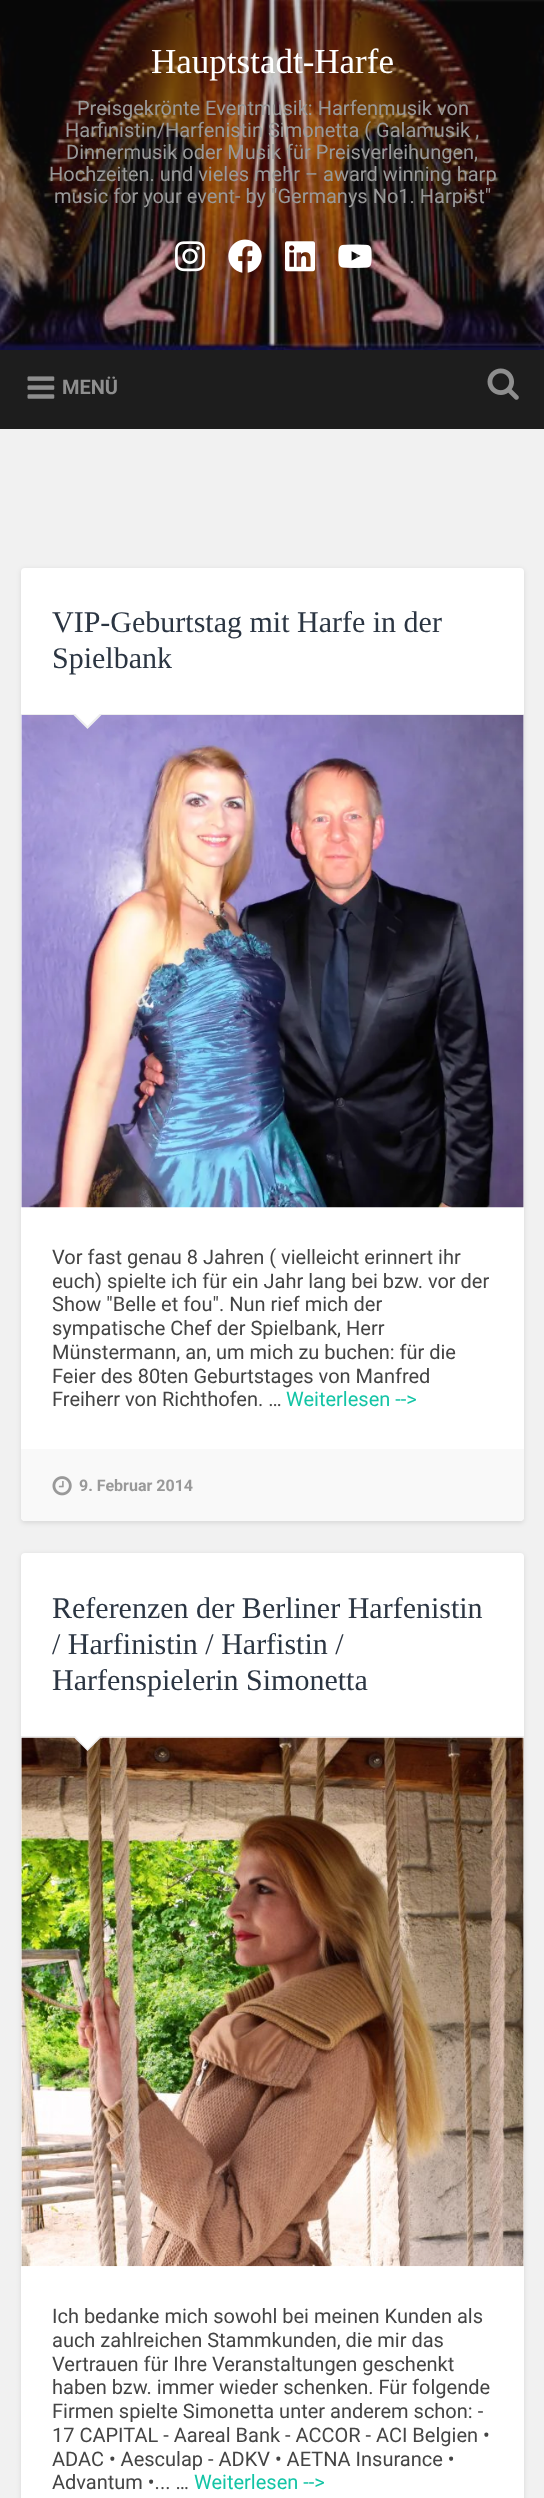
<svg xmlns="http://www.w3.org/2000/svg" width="544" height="2498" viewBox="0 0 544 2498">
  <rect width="100%" height="100%" fill="rgb(241,241,241)"/>
  <image x="0" y="0" width="544" height="350" href="pic1.png"/>
  <text x="151" y="73" font-family="Liberation Serif" font-size="35" fill="rgb(255,255,255)">Hauptstadt-Harfe</text>
  <g font-family="Roboto" font-size="20" fill="rgb(153,153,153)">
    <text x="77" y="115">Preisgekrönte Eventmusik: Harfenmusik von</text>
    <text x="65" y="137">Harfinistin/Harfenistin Simonetta ( Galamusik ,</text>
    <text x="66" y="159">Dinnermusik oder Musik für Preisverleihungen,</text>
    <text x="49" y="181">Hochzeiten. und vieles mehr – award winning harp</text>
    <text x="54" y="203">music for your event- by "Germanys No1. Harpist"</text>
  </g>
  <image x="175" y="241" width="30" height="31" href="pic2.png"/>
  <image x="228" y="239" width="34" height="34" href="pic3.png"/>
  <image x="285" y="241" width="30" height="31" href="pic4.png"/>
  <image x="338" y="244" width="34" height="24" href="pic5.png"/>
  <rect x="0" y="350" width="544" height="79" fill="rgb(29,29,29)"/>
  <image x="27" y="376" width="28" height="23" href="pic6.png"/>
  <text x="62" y="394" font-family="Roboto" font-size="20" font-weight="bold" fill="rgb(142,142,142)">MENÜ</text>
  <image x="487" y="368" width="32" height="32" href="pic7.png"/>
  <rect x="21" y="569" width="503" height="954" rx="4" fill="rgba(0,0,0,0.1)" filter="blur(2.5px)"/>
  <rect x="21" y="568" width="503" height="953" rx="4" fill="rgb(255,255,255)"/>
  <rect x="21" y="714" width="503" height="1" fill="rgb(238,238,238)"/>
  <g font-family="Liberation Serif" font-size="30" fill="rgb(43,53,66)">
    <text>
      <tspan x="52" y="632">VIP-Geburtstag mit Harfe in der</tspan>
      <tspan x="52" y="668">Spielbank</tspan>
    </text>
  </g>
  <image x="21" y="715" width="503" height="493" href="pic8.png"/>
  <path d="M72.5 714H102.5L87.5 729Z" fill="rgb(238,238,238)"/>
  <path d="M74 712.5H101L87.5 726Z" fill="rgb(255,255,255)"/>
  <g font-family="Roboto" font-size="20" fill="rgb(68,68,68)">
    <text>
      <tspan x="52" y="1264">Vor fast genau 8 Jahren ( vielleicht erinnert ihr</tspan>
      <tspan x="52" y="1288">euch) spielte ich für ein Jahr lang bei bzw. vor der</tspan>
      <tspan x="52" y="1311">Show "Belle et fou". Nun rief mich der</tspan>
      <tspan x="52" y="1335">sympatische Chef der Spielbank, Herr</tspan>
      <tspan x="52" y="1359">Münstermann, an, um mich zu buchen: für die</tspan>
      <tspan x="52" y="1383">Feier des 80ten Geburtstages von Manfred</tspan>
      <tspan x="52" y="1406">Freiherr von Richthofen. …</tspan>
    </text>
  </g>
  <text x="286" y="1406" font-family="Roboto" font-size="20" fill="rgb(19,196,165)">Weiterlesen --&gt;</text>
  <path d="M21 1449H524V1517C524 1519 522 1521 520 1521H25C23 1521 21 1519 21 1517Z" fill="rgb(249,249,249)"/>
  <image x="52" y="1476" width="20" height="20" href="pic9.png"/>
  <text x="79" y="1491" font-family="Roboto" font-size="16" font-weight="bold" fill="rgb(153,153,153)">9. Februar 2014</text>
  <rect x="21" y="1554" width="503" height="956" rx="4" fill="rgba(0,0,0,0.1)" filter="blur(2.5px)"/>
  <rect x="21" y="1553" width="503" height="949" rx="4" fill="rgb(255,255,255)"/>
  <rect x="21" y="1736" width="503" height="1" fill="rgb(238,238,238)"/>
  <g font-family="Liberation Serif" font-size="30" fill="rgb(43,53,66)">
    <text>
      <tspan x="52" y="1618">Referenzen der Berliner Harfenistin</tspan>
      <tspan x="52" y="1654">/ Harfinistin / Harfistin /</tspan>
      <tspan x="52" y="1690">Harfenspielerin Simonetta</tspan>
    </text>
  </g>
  <image x="21" y="1737" width="503" height="530" href="pic10.png"/>
  <path d="M72.5 1736H102.5L87.5 1751Z" fill="rgb(238,238,238)"/>
  <path d="M74 1735H101L87.5 1749Z" fill="rgb(255,255,255)"/>
  <g font-family="Roboto" font-size="20" fill="rgb(68,68,68)">
    <text>
      <tspan x="52" y="2323">Ich bedanke mich sowohl bei meinen Kunden als</tspan>
      <tspan x="52" y="2347">auch zahlreichen Stammkunden, die mir das</tspan>
      <tspan x="52" y="2371">Vertrauen für Ihre Veranstaltungen geschenkt</tspan>
      <tspan x="52" y="2394">haben bzw. immer wieder schenken. Für folgende</tspan>
      <tspan x="52" y="2418">Firmen spielte Simonetta unter anderem schon: -</tspan>
      <tspan x="52" y="2442">17 CAPITAL - Aareal Bank - ACCOR - ACI Belgien •</tspan>
      <tspan x="52" y="2466">ADAC • Aesculap - ADKV • AETNA Insurance •</tspan>
      <tspan x="52" y="2489">Advantum •... …</tspan>
    </text>
  </g>
  <text x="194" y="2489" font-family="Roboto" font-size="20" fill="rgb(19,196,165)">Weiterlesen --&gt;</text>
</svg>
